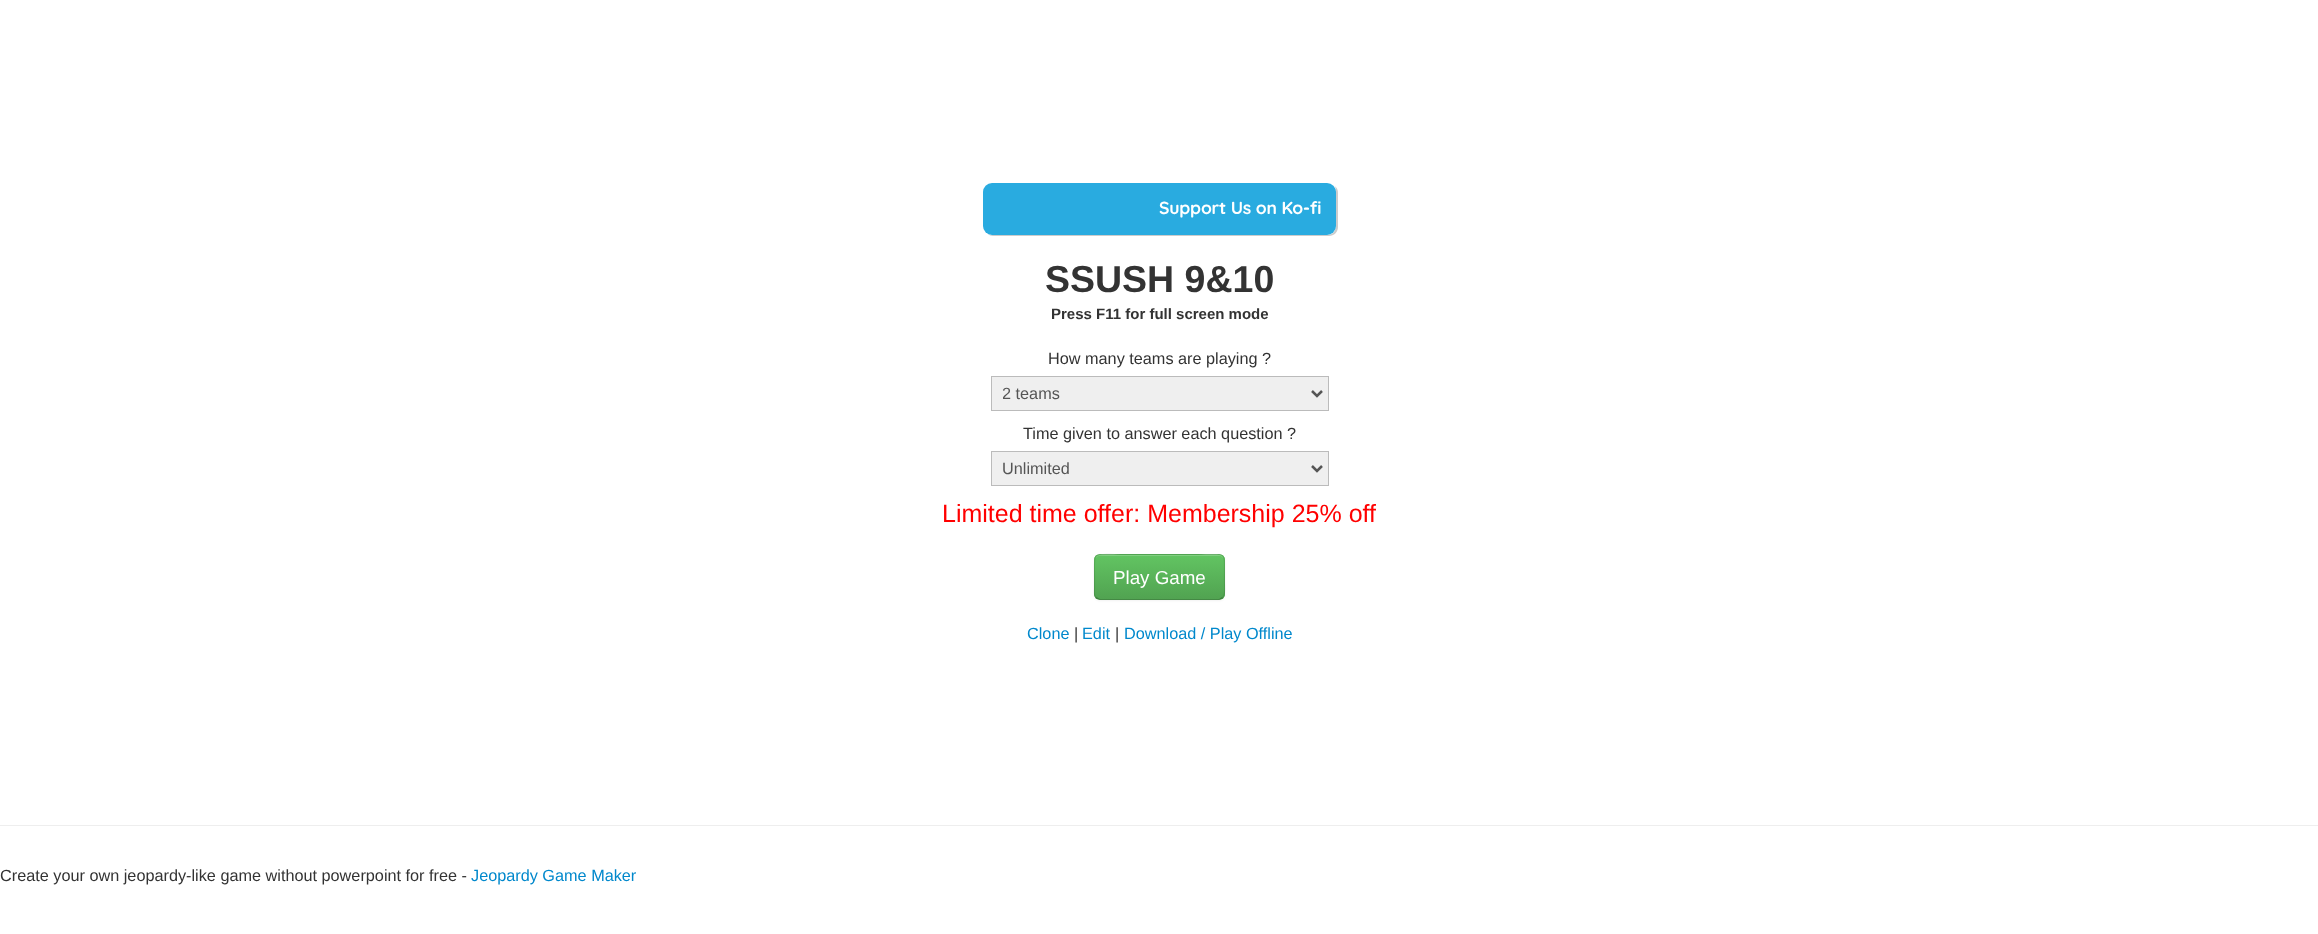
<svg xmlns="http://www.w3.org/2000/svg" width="2318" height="934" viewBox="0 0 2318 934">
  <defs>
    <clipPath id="clip1"><rect x="1003" y="383" width="300" height="21"/></clipPath>
    <clipPath id="clip2"><rect x="1094" y="554" width="131" height="46" rx="6"/></clipPath>
    <linearGradient id="g1" gradientUnits="userSpaceOnUse" x1="1159" y1="555" x2="1159" y2="599"><stop offset="0" stop-color="rgb(98,196,98)"/><stop offset="1" stop-color="rgb(81,163,81)"/></linearGradient>
  </defs>
  <rect width="100%" height="100%" fill="rgb(255,255,255)"/>
  <path d="M988 234C989 235 991 236 993 236H1329C1334 236 1338 232 1338 227V193C1338 190 1337 187 1334 186C1336 187 1336 189 1336 191V226C1336 231 1332 235 1328 235H991Z" fill="rgb(204,204,204)"/>
  <rect x="983" y="183" width="353" height="52" rx="9" fill="rgb(41,171,224)"/>
  <text x="1159" y="214" font-family="Quicksand" font-size="17.5" font-weight="bold" letter-spacing="-0.2" fill="rgb(255,255,255)">Support Us on Ko-fi</text>
  <text x="1045" y="292" font-family="Liberation Sans" font-size="37.5" font-weight="bold" fill="rgb(51,51,51)">SSUSH 9&amp;10</text>
  <text x="1051" y="319" font-family="Liberation Sans" font-size="15" font-weight="bold" fill="rgb(51,51,51)">Press F11 for full screen mode</text>
  <text x="1048" y="364" font-family="Liberation Sans" font-size="16.25" fill="rgb(51,51,51)">How many teams are playing ?</text>
  <rect x="991.5" y="376.5" width="337" height="34" fill="rgb(239,239,239)" stroke="rgb(187,187,187)"/>
  <path d="M1312 391L1317 396L1322 391" fill="none" stroke="rgb(85,85,85)" stroke-width="2.5"/>
  <g clip-path="url(#clip1)">
    <text x="1002" y="399" font-family="Liberation Sans" font-size="16.25" fill="rgb(85,85,85)">2 teams</text>
  </g>
  <text x="1023" y="439" font-family="Liberation Sans" font-size="16.25" fill="rgb(51,51,51)">Time given to answer each question ?</text>
  <rect x="991.5" y="451.5" width="337" height="34" fill="rgb(239,239,239)" stroke="rgb(187,187,187)"/>
  <path d="M1312 466L1317 471L1322 466" fill="none" stroke="rgb(85,85,85)" stroke-width="2.5"/>
  <text x="1002" y="474" font-family="Liberation Sans" font-size="16.25" fill="rgb(85,85,85)">Unlimited</text>
  <text x="942" y="522" font-family="Liberation Sans" font-size="25" fill="rgb(255,0,0)">Limited time offer: Membership 25% off</text>
  <rect x="1094" y="555" width="131" height="46" rx="6" fill="rgba(0,0,0,0.05)" filter="blur(1px)"/>
  <rect x="1094" y="554" width="131" height="46" rx="6" fill="rgb(91,183,91)"/>
  <g clip-path="url(#clip2)">
    <rect x="1094" y="555" width="131" height="44" fill="url(#g1)"/>
  </g>
  <path d="M1100 556H1219C1222 556 1224 558 1224 561C1224 550 1203 555 1199 555H1120C1116 555 1095 550 1095 561C1095 558 1097 556 1100 556Z" fill="rgba(255,255,255,0.2)"/>
  <path d="M1222.5 597.5L1219.5 599.5H1099.5L1096 597.5" fill="none" stroke="rgba(0,0,0,0.25)" stroke-width="1.2"/>
  <path d="M1096 597.5C1093.5 595.5 1094.5 591 1094.5 588V577C1094.5 550 1091 554.5 1120 554.5H1219C1225 554.5 1224.5 561.5 1224.5 565.5V582.5C1224.5 586 1226 594.5 1222.5 597.5" fill="none" stroke="rgba(0,0,0,0.1)" stroke-width="1.2"/>
  <text x="1113" y="584" font-family="Liberation Sans" font-size="18.75" fill="rgb(255,255,255)">Play Game</text>
  <text x="1027" y="639" font-family="Liberation Sans" font-size="16.25" fill="rgb(0,136,204)">Clone</text>
  <text x="1074" y="639" font-family="Liberation Sans" font-size="16.25" fill="rgb(51,51,51)">|</text>
  <text x="1082" y="639" font-family="Liberation Sans" font-size="16.25" fill="rgb(0,136,204)">Edit</text>
  <text x="1115" y="639" font-family="Liberation Sans" font-size="16.25" fill="rgb(51,51,51)">|</text>
  <text x="1124" y="639" font-family="Liberation Sans" font-size="16.25" fill="rgb(0,136,204)">Download / Play Offline</text>
  <rect x="0" y="825" width="2318" height="1" fill="rgb(238,238,238)"/>
  <text x="0" y="881" font-family="Liberation Sans" font-size="16.25" fill="rgb(51,51,51)">Create your own jeopardy-like game without powerpoint for free -</text>
  <text x="471" y="881" font-family="Liberation Sans" font-size="16.25" fill="rgb(0,136,204)">Jeopardy Game Maker</text>
</svg>
